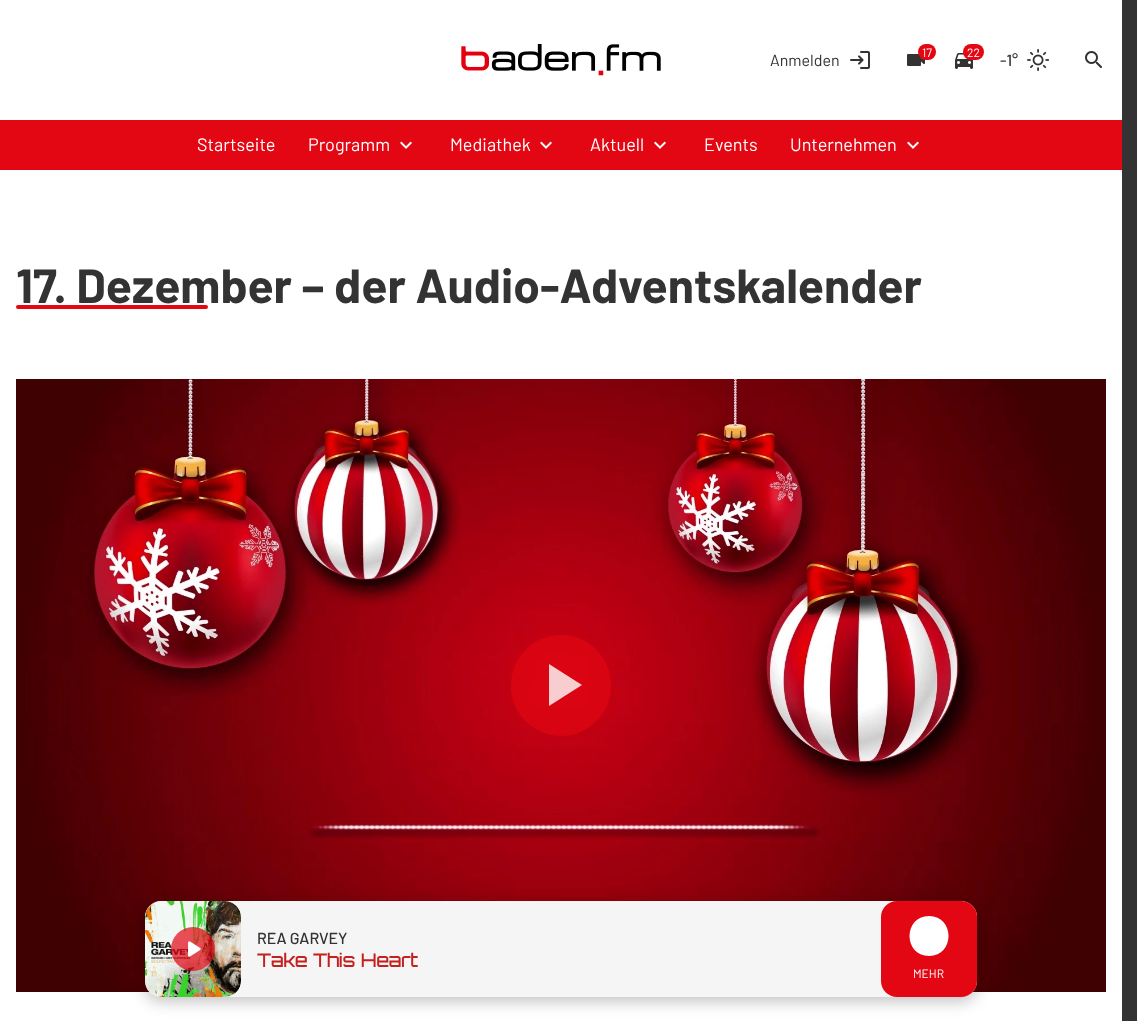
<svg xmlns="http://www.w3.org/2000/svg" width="1137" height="1021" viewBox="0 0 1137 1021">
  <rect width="100%" height="100%" fill="rgb(51,51,51)"/>
  <rect x="0" y="0" width="1122" height="1021" fill="rgb(255,255,255)"/>
  <image x="461" y="44" width="200" height="32" href="pic1.png"/>
  <text x="770" y="66" font-family="Barlow" font-size="16" fill="rgb(51,51,51)">Anmelden</text>
  <image x="850" y="51" width="20" height="18" href="pic2.png"/>
  <image x="907" y="54" width="18" height="12" href="pic3.png"/>
  <rect x="918" y="44" width="18" height="16" rx="8" fill="rgb(227,6,19)"/>
  <text x="922" y="57" font-family="Barlow" font-size="12" fill="rgb(255,255,255)">17</text>
  <image x="955" y="53" width="18" height="16" href="pic4.png"/>
  <rect x="963" y="44" width="21" height="16" rx="8" fill="rgb(227,6,19)"/>
  <text x="967" y="57" font-family="Barlow" font-size="12" fill="rgb(255,255,255)">22</text>
  <text x="1000" y="66" font-family="Barlow" font-size="16" font-weight="500" fill="rgb(51,51,51)">-1°</text>
  <image x="1027" y="48" width="23" height="23" href="pic5.png"/>
  <image x="1085" y="51" width="17" height="17" href="pic6.png"/>
  <rect x="0" y="120" width="1122" height="50" fill="rgb(227,6,19)"/>
  <g font-family="Barlow" font-size="18" fill="rgb(255,255,255)">
    <text x="197" y="151">Startseite</text>
    <text x="308" y="151">Programm</text>
  </g>
  <image x="400" y="141" width="12" height="8" href="pic7.png"/>
  <text x="450" y="151" font-family="Barlow" font-size="18" fill="rgb(255,255,255)">Mediathek</text>
  <image x="540" y="141" width="12" height="8" href="pic7.png"/>
  <text x="590" y="151" font-family="Barlow" font-size="18" fill="rgb(255,255,255)">Aktuell</text>
  <image x="654" y="141" width="12" height="8" href="pic7.png"/>
  <g font-family="Barlow" font-size="18" fill="rgb(255,255,255)">
    <text x="704" y="151">Events</text>
    <text x="790" y="151">Unternehmen</text>
  </g>
  <image x="907" y="141" width="12" height="8" href="pic7.png"/>
  <text x="16" y="303" font-family="Barlow" font-size="48" font-weight="bold" fill="rgb(51,51,51)">17. Dezember – der Audio-Adventskalender</text>
  <rect x="16" y="305" width="192" height="4" rx="2" fill="rgb(227,6,19)"/>
  <image x="16" y="379" width="1090" height="613" href="pic8.png"/>
  <rect x="511" y="635" width="100" height="101" rx="50" fill="rgba(227,6,19,0.64)"/>
  <path d="M549 664V706L582 685Z" fill="rgb(248,205,208)"/>
  <rect x="145" y="905" width="832" height="96" rx="16" fill="rgba(0,0,0,0.25)" filter="blur(8px)"/>
  <rect x="145" y="901" width="832" height="96" rx="16" fill="rgb(245,245,245)"/>
  <image x="145" y="901" width="96" height="96" href="pic9.png"/>
  <circle cx="193" cy="949" r="22" fill="rgba(227,6,19,0.7)"/>
  <image x="188" y="941" width="13" height="16" href="pic10.png"/>
  <text x="257" y="944" font-family="Barlow" font-size="16" font-weight="500" fill="rgb(51,51,51)">REA GARVEY</text>
  <text x="257" y="967" word-spacing="1" font-family="Orbitron" font-size="18" font-weight="bold" fill="rgb(195,32,30)">Take This Heart</text>
  <rect x="881" y="901" width="96" height="96" rx="16" fill="rgb(227,6,19)"/>
  <path d="M929 916C955 916 955 956 929 956C903 956 903 916 929 916Z" fill="rgb(255,255,255)"/>
  <text x="913" y="978" font-family="Barlow" font-size="12" fill="rgb(255,255,255)">MEHR</text>
</svg>
